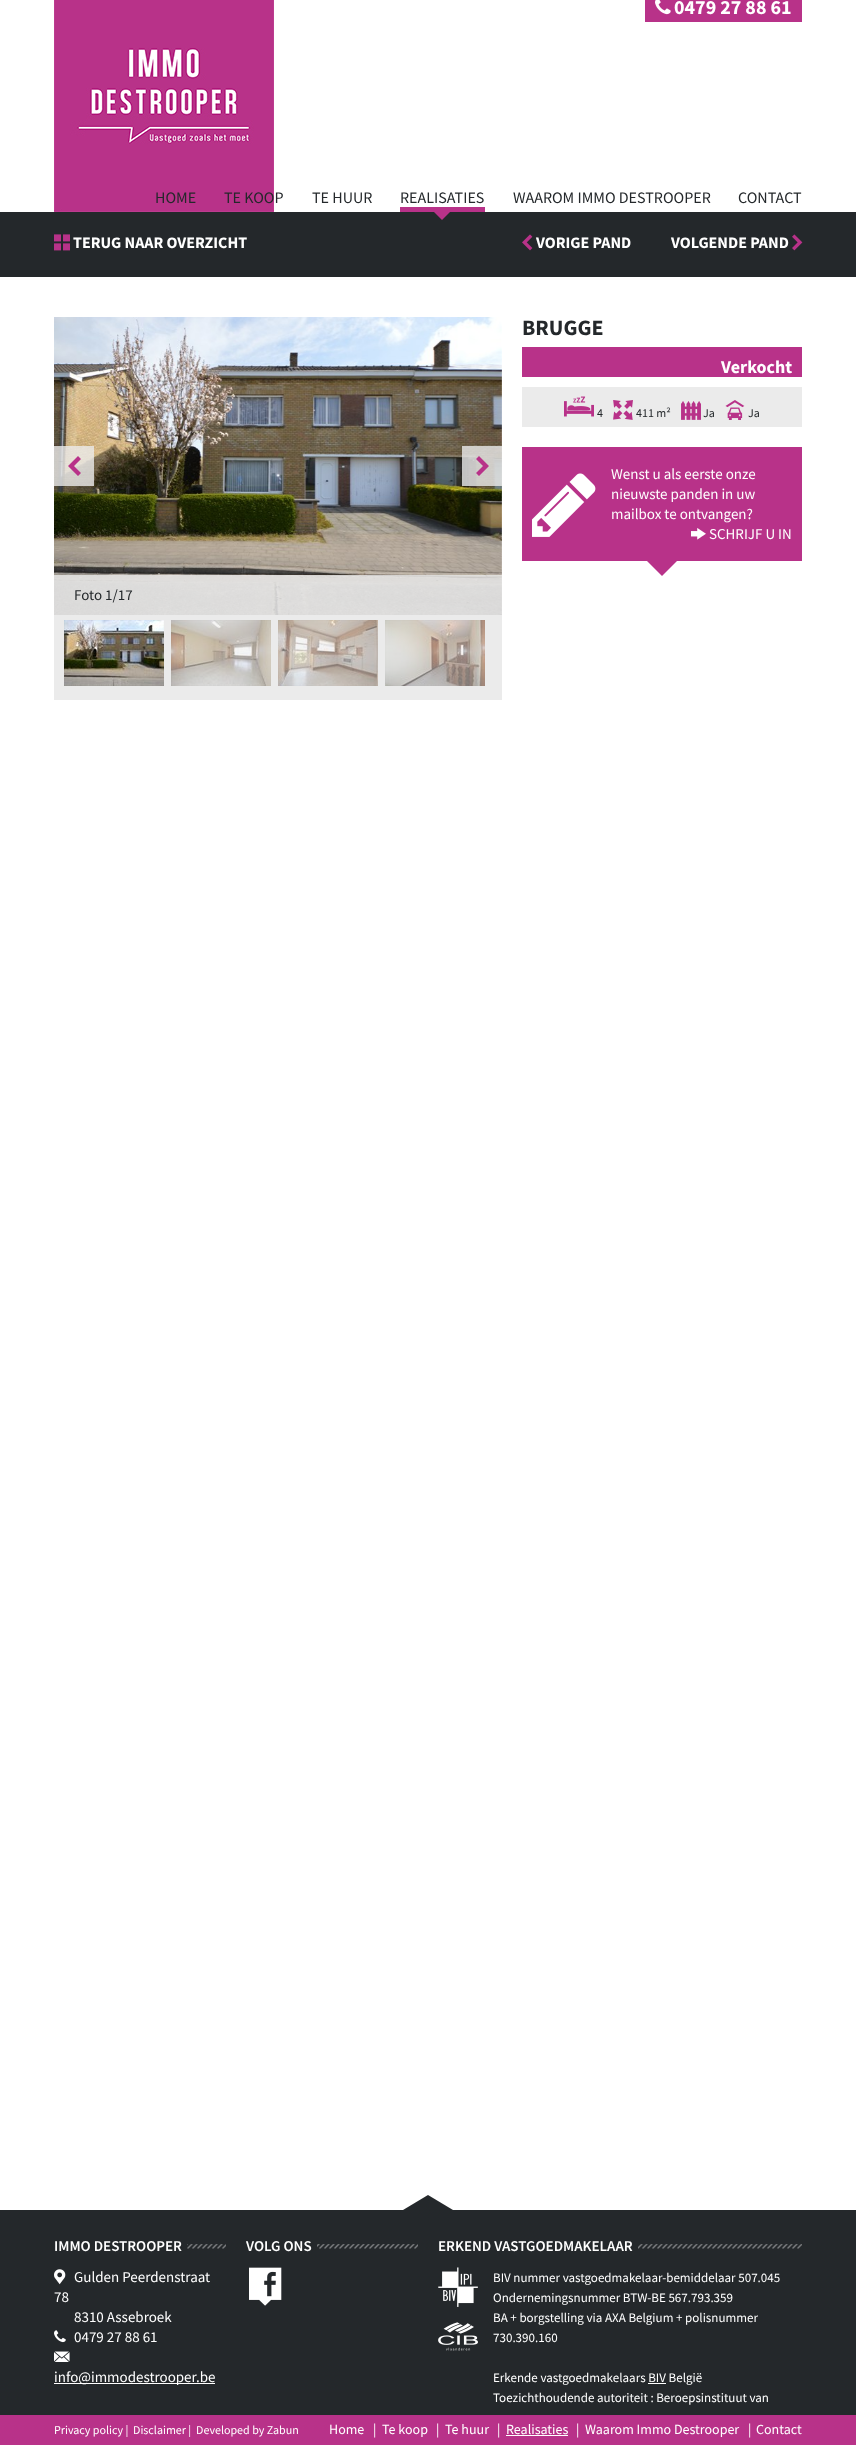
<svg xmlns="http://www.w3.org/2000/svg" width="856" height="2453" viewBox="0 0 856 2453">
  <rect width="100%" height="100%" fill="rgb(255,255,255)"/>
  <image x="54" y="0" width="220" height="212" href="pic1.png"/>
  <rect x="645" y="0" width="157" height="22" fill="rgb(184,50,137)"/>
  <image x="655" y="0" width="16" height="15" href="pic2.png"/>
  <text x="674" y="14" font-family="Source Sans Pro" font-size="20" font-weight="bold" fill="rgb(255,255,255)">0479 27 88 61</text>
  <g font-family="Source Sans Pro" font-size="16" fill="rgb(36,40,43)">
    <text x="155" y="203">HOME</text>
    <text x="224" y="203">TE KOOP</text>
    <text x="312" y="203">TE HUUR</text>
    <text x="400" y="203">REALISATIES</text>
  </g>
  <rect x="400" y="207" width="85" height="5" fill="rgb(184,50,137)"/>
  <rect x="0" y="212" width="856" height="65" fill="rgb(36,40,43)"/>
  <path d="M434 212H450L442 220Z" fill="rgb(184,50,137)"/>
  <g font-family="Source Sans Pro" font-size="16" fill="rgb(36,40,43)">
    <text x="513" y="203">WAAROM IMMO DESTROOPER</text>
    <text x="738" y="203">CONTACT</text>
  </g>
  <image x="54" y="234" width="16" height="17" href="pic3.png"/>
  <text x="73" y="248" font-family="Source Sans Pro" font-size="16" font-weight="bold" fill="rgb(255,255,255)">TERUG NAAR OVERZICHT</text>
  <image x="522" y="234" width="11" height="17" href="pic4.png"/>
  <g font-family="Source Sans Pro" font-size="16" font-weight="bold" fill="rgb(255,255,255)">
    <text x="536" y="248">VORIGE PAND</text>
    <text x="671" y="248">VOLGENDE PAND</text>
  </g>
  <image x="792" y="234" width="11" height="17" href="pic5.png"/>
  <text x="522" y="335" font-family="Source Sans Pro" font-size="22" font-weight="bold" fill="rgb(36,40,43)">BRUGGE</text>
  <rect x="522" y="347" width="280" height="30" fill="rgb(184,50,137)"/>
  <text x="721" y="373" font-family="Source Sans Pro" font-size="18" font-weight="bold" fill="rgb(255,255,255)">Verkocht</text>
  <rect x="522" y="387" width="280" height="40" fill="rgb(235,235,235)"/>
  <image x="564" y="396" width="30" height="21" href="pic6.png"/>
  <text x="597" y="417" font-family="Source Sans Pro" font-size="12" fill="rgb(36,40,43)">4</text>
  <image x="613" y="400" width="20" height="20" href="pic7.png"/>
  <text x="636" y="417" font-family="Source Sans Pro" font-size="12" fill="rgb(36,40,43)">411 m²</text>
  <image x="681" y="401" width="20" height="19" href="pic8.png"/>
  <text x="703" y="417" font-family="Source Sans Pro" font-size="12" fill="rgb(36,40,43)">Ja</text>
  <image x="725" y="400" width="20" height="20" href="pic9.png"/>
  <text x="748" y="417" font-family="Source Sans Pro" font-size="12" fill="rgb(36,40,43)">Ja</text>
  <rect x="522" y="447" width="280" height="114" fill="rgb(184,50,137)"/>
  <image x="532" y="473" width="64" height="64" href="pic10.png"/>
  <g font-family="Source Sans Pro" font-size="15" fill="rgb(255,255,255)">
    <text>
      <tspan x="611" y="479">Wenst u als eerste onze</tspan>
      <tspan x="611" y="499">nieuwste panden in uw</tspan>
      <tspan x="611" y="519">mailbox te ontvangen?</tspan>
    </text>
  </g>
  <image x="691" y="528" width="15" height="12" href="pic11.png"/>
  <text x="709" y="539" font-family="Source Sans Pro" font-size="15" fill="rgb(255,255,255)">SCHRIJF U IN</text>
  <path d="M647 561H677L662 576Z" fill="rgb(184,50,137)"/>
  <image x="54" y="317" width="448" height="298" href="pic12.png"/>
  <rect x="54" y="446" width="40" height="40" fill="rgba(235,235,235,0.8)"/>
  <path d="M68 466L78 456L81 459L74 466L81 473L78 476Z" fill="rgb(184,50,137)"/>
  <rect x="462" y="446" width="40" height="40" fill="rgba(235,235,235,0.8)"/>
  <path d="M476 473L483 466L476 459L479 456L489 466L479 476Z" fill="rgb(184,50,137)"/>
  <rect x="54" y="575" width="448" height="40" fill="rgba(235,235,235,0.8)"/>
  <text x="74" y="600" font-family="Source Sans Pro" font-size="15" fill="rgb(36,40,43)">Foto 1/17</text>
  <rect x="54" y="615" width="448" height="85" fill="rgb(235,235,235)"/>
  <image x="64" y="620" width="100" height="66" href="pic13.png"/>
  <image x="171" y="620" width="100" height="66" href="pic14.png"/>
  <image x="278" y="620" width="100" height="66" href="pic15.png"/>
  <image x="385" y="620" width="100" height="66" href="pic16.png"/>
  <rect x="0" y="2210" width="856" height="205" fill="rgb(36,40,43)"/>
  <path d="M453 2210H403L428 2195Z" fill="rgb(36,40,43)"/>
  <image x="187" y="2244" width="39" height="5" href="pic17.png"/>
  <text x="54" y="2251" font-family="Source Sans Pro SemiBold" font-size="15" font-weight="600" fill="rgb(255,255,255)">IMMO DESTROOPER</text>
  <image x="54" y="2269" width="12" height="16" href="pic18.png"/>
  <g font-family="Source Sans Pro" font-size="15" fill="rgb(255,255,255)">
    <text x="74" y="2282">Gulden Peerdenstraat</text>
    <text x="54" y="2302">78</text>
    <text x="74" y="2322">8310 Assebroek</text>
  </g>
  <image x="54" y="2330" width="12" height="13" href="pic19.png"/>
  <text x="74" y="2342" font-family="Source Sans Pro" font-size="15" fill="rgb(255,255,255)">0479 27 88 61</text>
  <image x="54" y="2351" width="16" height="11" href="pic20.png"/>
  <rect x="54" y="2383" width="161" height="1" fill="rgb(255,255,255)"/>
  <text x="54" y="2382" font-family="Source Sans Pro" font-size="15" fill="rgb(255,255,255)">info@immodestrooper.be</text>
  <image x="317" y="2244" width="101" height="5" href="pic21.png"/>
  <text x="246" y="2251" font-family="Source Sans Pro SemiBold" font-size="15" font-weight="600" fill="rgb(255,255,255)">VOLG ONS</text>
  <image x="249" y="2267" width="33" height="39" href="pic22.png"/>
  <image x="638" y="2244" width="164" height="5" href="pic23.png"/>
  <text x="438" y="2251" font-family="Source Sans Pro SemiBold" font-size="15" font-weight="600" fill="rgb(255,255,255)">ERKEND VASTGOEDMAKELAAR</text>
  <image x="438" y="2267" width="40" height="40" href="pic24.png"/>
  <image x="438" y="2322" width="40" height="29" href="pic25.png"/>
  <g font-family="Source Sans Pro" font-size="13" fill="rgb(255,255,255)">
    <text>
      <tspan x="493" y="2282">BIV nummer vastgoedmakelaar-bemiddelaar 507.045</tspan>
      <tspan x="493" y="2302">Ondernemingsnummer BTW-BE 567.793.359</tspan>
      <tspan x="493" y="2322">BA + borgstelling via AXA Belgium + polisnummer</tspan>
      <tspan x="493" y="2342">730.390.160</tspan>
    </text>
    <text x="493" y="2382">Erkende vastgoedmakelaars BIV België</text>
  </g>
  <rect x="648" y="2383" width="18" height="1" fill="rgb(255,255,255)"/>
  <text x="493" y="2402" font-family="Source Sans Pro" font-size="13" fill="rgb(255,255,255)">Toezichthoudende autoriteit : Beroepsinstituut van</text>
  <rect x="0" y="2415" width="856" height="30" fill="rgb(184,50,137)"/>
  <g font-family="Source Sans Pro" font-size="12" fill="rgb(255,255,255)">
    <text x="54" y="2434">Privacy policy |</text>
    <text x="133" y="2434">Disclaimer |</text>
    <text x="196" y="2434">Developed by Zabun</text>
  </g>
  <g font-family="Source Sans Pro" font-size="14" fill="rgb(255,255,255)">
    <text x="329" y="2434">Home</text>
    <text x="373" y="2434">|</text>
    <text x="382" y="2434">Te koop</text>
    <text x="436" y="2434">|</text>
    <text x="445" y="2434">Te huur</text>
    <text x="497" y="2434">|</text>
    <text x="506" y="2434">Realisaties</text>
  </g>
  <rect x="506" y="2435" width="62" height="1" fill="rgb(255,255,255)"/>
  <g font-family="Source Sans Pro" font-size="14" fill="rgb(255,255,255)">
    <text x="576" y="2434">|</text>
    <text x="585" y="2434">Waarom Immo Destrooper</text>
    <text x="748" y="2434">|</text>
    <text x="756" y="2434">Contact</text>
  </g>
</svg>
